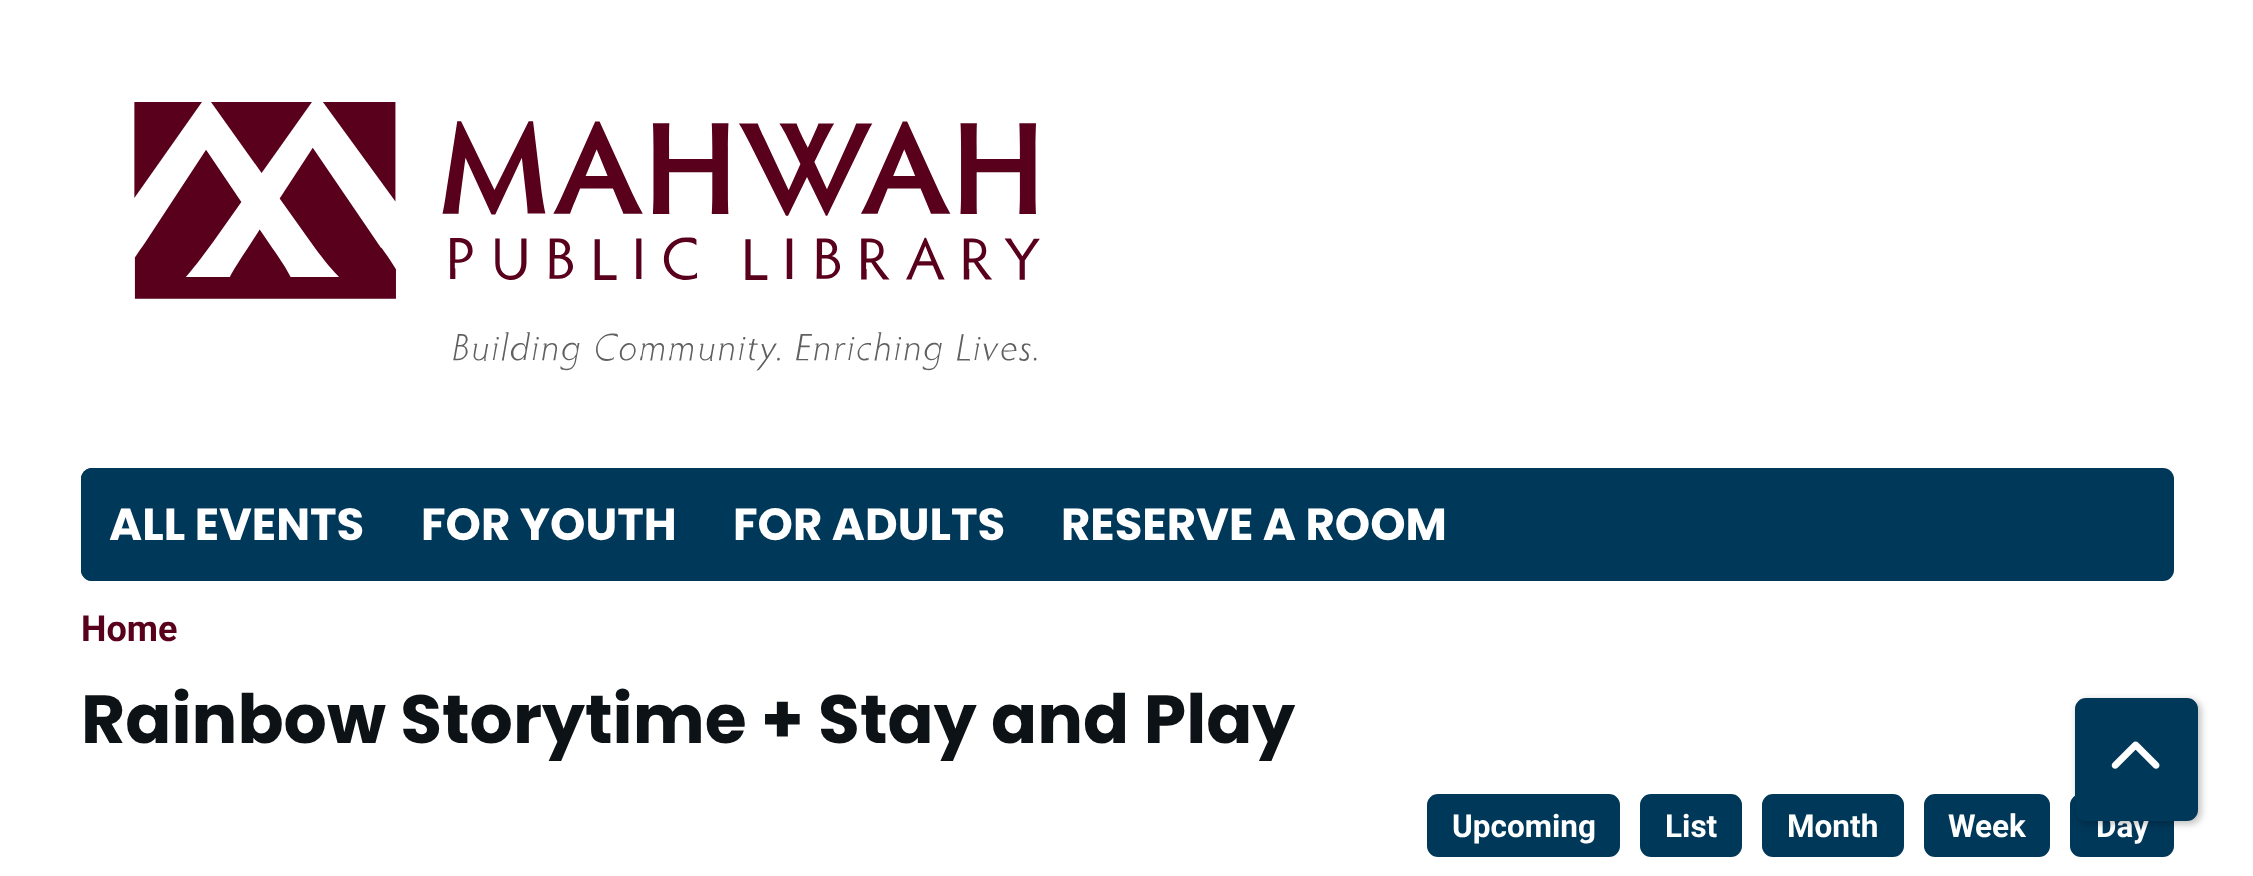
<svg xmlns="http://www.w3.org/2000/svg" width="2253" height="876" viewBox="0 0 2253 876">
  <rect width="100%" height="100%" fill="rgb(255,255,255)"/>
  <image x="134" y="102" width="906" height="269" href="pic1.png"/>
  <rect x="81" y="468" width="2093" height="113" rx="11" fill="rgb(0,56,89)"/>
  <path d="M92 468H392V581H92C86 581 81 576 81 570V479C81 473 86 468 92 468Z" fill="rgb(0,56,89)"/>
  <g font-family="Poppins" font-size="45" font-weight="bold" fill="rgb(255,255,255)">
    <text x="109" y="540">ALL EVENTS</text>
    <text x="421" y="540">FOR YOUTH</text>
    <text x="733" y="540">FOR ADULTS</text>
    <text x="1061" y="540">RESERVE A ROOM</text>
  </g>
  <text x="81" y="641" font-family="Roboto" font-size="36" font-weight="bold" fill="rgb(89,0,28)">Home</text>
  <text x="81" y="743" font-family="Poppins" font-size="68" font-weight="bold" fill="rgb(13,18,22)">Rainbow Storytime + Stay and Play</text>
  <rect x="1428" y="795" width="191" height="61" rx="10" fill="rgb(0,56,89)" stroke="rgb(0,56,89)" stroke-width="2"/>
  <text x="1452" y="837" font-family="Roboto" font-size="31.5" font-weight="bold" fill="rgb(255,255,255)">Upcoming</text>
  <rect x="1641" y="795" width="100" height="61" rx="10" fill="rgb(0,56,89)" stroke="rgb(0,56,89)" stroke-width="2"/>
  <text x="1665" y="837" font-family="Roboto" font-size="31.5" font-weight="bold" fill="rgb(255,255,255)">List</text>
  <rect x="1763" y="795" width="140" height="61" rx="10" fill="rgb(0,56,89)" stroke="rgb(0,56,89)" stroke-width="2"/>
  <text x="1787" y="837" font-family="Roboto" font-size="31.5" font-weight="bold" fill="rgb(255,255,255)">Month</text>
  <rect x="1925" y="795" width="124" height="61" rx="10" fill="rgb(0,56,89)" stroke="rgb(0,56,89)" stroke-width="2"/>
  <text x="1948" y="837" font-family="Roboto" font-size="31.5" font-weight="bold" fill="rgb(255,255,255)">Week</text>
  <rect x="2071" y="795" width="102" height="61" rx="10" fill="rgb(0,56,89)" stroke="rgb(0,56,89)" stroke-width="2"/>
  <text x="2096" y="837" font-family="Roboto" font-size="31.5" font-weight="bold" fill="rgb(255,255,255)">Day</text>
  <rect x="2077" y="700" width="124" height="124" rx="11" fill="rgba(0,0,0,0.25)" filter="blur(3.5px)"/>
  <rect x="2076" y="699" width="121" height="121" rx="10" fill="rgb(0,56,89)" stroke="rgb(0,56,89)" stroke-width="2"/>
  <image x="2111" y="741" width="49" height="28" href="pic2.png"/>
</svg>
